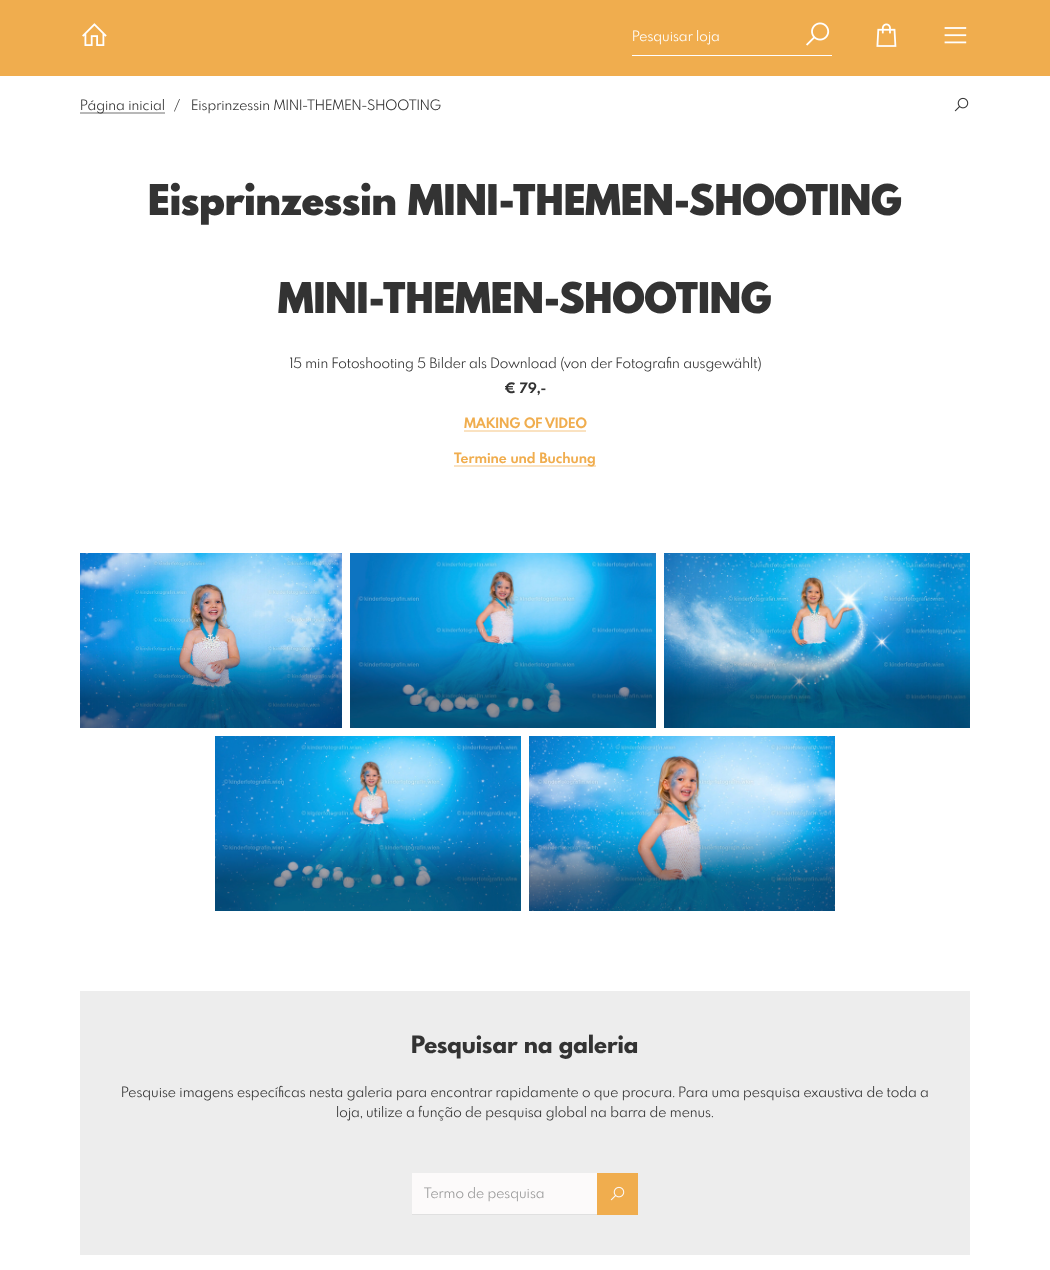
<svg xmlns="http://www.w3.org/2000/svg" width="1050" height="1270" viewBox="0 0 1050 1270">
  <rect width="100%" height="100%" fill="rgb(255,255,255)"/>
  <rect x="0" y="0" width="1050" height="76" fill="rgb(240,173,78)"/>
  <image x="82" y="23" width="25" height="23" href="pic1.png"/>
  <rect x="632" y="55" width="200" height="1" fill="rgb(255,255,255)"/>
  <text x="632" y="41" font-family="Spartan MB" font-size="14" fill="rgb(255,255,255)">Pesquisar loja</text>
  <image x="806" y="22" width="24" height="24" href="pic2.png"/>
  <image x="876" y="23" width="21" height="24" href="pic3.png"/>
  <image x="944" y="27" width="23" height="17" href="pic4.png"/>
  <rect x="80" y="112" width="85" height="2" fill="rgb(184,184,184)"/>
  <g font-family="Spartan MB" font-size="14" fill="rgb(51,51,51)">
    <text x="80" y="110">Página inicial</text>
    <text x="174" y="110">/</text>
    <text x="191" y="110">Eisprinzessin MINI-THEMEN-SHOOTING</text>
  </g>
  <image x="954" y="97" width="15" height="15" href="pic5.png"/>
  <g font-family="Spartan MB" font-size="41.25" font-weight="900" fill="rgb(51,51,51)">
    <text x="148" y="215">Eisprinzessin MINI-THEMEN-SHOOTING</text>
    <text x="278" y="313">MINI-THEMEN-SHOOTING</text>
  </g>
  <text x="289" y="368" font-family="Spartan MB" font-size="14" fill="rgb(51,51,51)">15 min Fotoshooting 5 Bilder als Download (von der Fotografin ausgewählt)</text>
  <text x="504" y="393" font-family="Spartan MB" font-size="14" font-weight="bold" fill="rgb(51,51,51)">€ 79,-</text>
  <text x="464" y="428" font-family="Spartan MB" font-size="14" font-weight="bold" fill="rgb(240,173,78)">MAKING OF VIDEO</text>
  <rect x="464" y="430" width="122" height="2" fill="rgb(250,226,193)"/>
  <rect x="454" y="465" width="142" height="2" fill="rgb(250,226,193)"/>
  <text x="454" y="463" font-family="Spartan MB" font-size="14" font-weight="bold" fill="rgb(240,173,78)">Termine und Buchung</text>
  <image x="80" y="553" width="262" height="175" href="pic6.png"/>
  <image x="350" y="553" width="306" height="175" href="pic7.png"/>
  <image x="664" y="553" width="306" height="175" href="pic8.png"/>
  <image x="215" y="736" width="306" height="175" href="pic9.png"/>
  <image x="529" y="736" width="306" height="175" href="pic10.png"/>
  <rect x="80" y="991" width="890" height="264" fill="rgb(237,237,237)"/>
  <text x="411" y="1053" font-family="Spartan MB" font-size="23.5" font-weight="800" fill="rgb(51,51,51)">Pesquisar na galeria</text>
  <g font-family="Spartan MB" font-size="14" fill="rgb(51,51,51)">
    <text x="121" y="1097">Pesquise imagens específicas nesta galeria para encontrar rapidamente o que procura. Para uma pesquisa exaustiva de toda a</text>
    <text x="336" y="1117">loja, utilize a função de pesquisa global na barra de menus.</text>
  </g>
  <rect x="412" y="1173" width="185" height="41" fill="rgb(252,250,250)"/>
  <rect x="412" y="1214" width="185" height="1" fill="rgb(224,224,224)"/>
  <text x="424" y="1198" font-family="Spartan MB" font-size="14" fill="rgb(153,153,153)">Termo de pesquisa</text>
  <rect x="597" y="1173" width="41" height="42" fill="rgb(240,173,78)"/>
  <image x="610" y="1186" width="15" height="15" href="pic11.png"/>
</svg>
